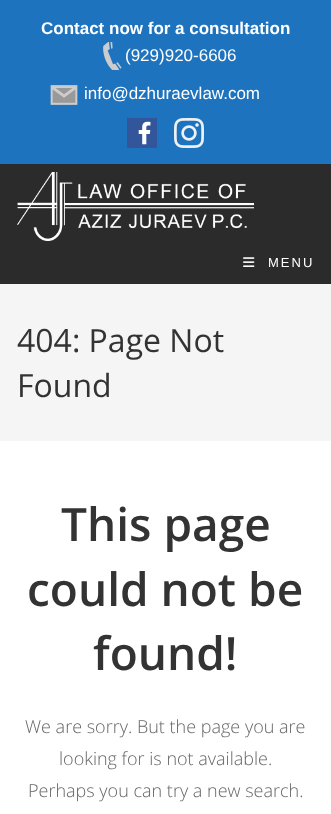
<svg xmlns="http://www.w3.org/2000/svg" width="331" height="814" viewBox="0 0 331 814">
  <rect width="100%" height="100%" fill="rgb(255,255,255)"/>
  <rect x="0" y="0" width="331" height="164" fill="rgb(30,115,190)"/>
  <text x="41" y="34" font-family="Liberation Sans" font-size="17" font-weight="bold" fill="rgb(255,255,255)">Contact now for a consultation</text>
  <image x="103" y="42" width="19" height="29" href="pic1.png"/>
  <text x="125" y="61" font-family="Liberation Sans" font-size="17" fill="rgb(255,255,255)">(929)920-6606</text>
  <image x="50" y="85" width="28" height="20" href="pic2.png"/>
  <text x="84" y="99" font-family="Liberation Sans" font-size="17" fill="rgb(255,255,255)">info@dzhuraevlaw.com</text>
  <image x="127" y="118" width="30" height="30" href="pic3.png"/>
  <image x="174" y="118" width="30" height="30" href="pic4.png"/>
  <rect x="0" y="164" width="331" height="120" fill="rgb(43,43,43)"/>
  <image x="17" y="172" width="237" height="69" href="pic5.png"/>
  <image x="243" y="257" width="12" height="10" href="pic6.png"/>
  <text x="268" y="267" font-family="Liberation Sans" font-size="13" letter-spacing="2" fill="rgb(255,255,255)">MENU</text>
  <rect x="0" y="284" width="331" height="157" fill="rgb(245,245,245)"/>
  <g font-family="Open Sans" font-size="32" fill="rgb(51,51,51)">
    <text>
      <tspan x="17" y="352">404: Page Not</tspan>
      <tspan x="17" y="397">Found</tspan>
    </text>
  </g>
  <g font-family="Open Sans" font-size="46" font-weight="600" fill="rgb(51,51,51)">
    <text x="61" y="541">This page</text>
    <text x="27" y="606">could not be</text>
    <text x="93" y="670">found!</text>
  </g>
  <g font-family="Open Sans" font-size="18" font-weight="300" fill="rgb(102,102,102)">
    <text x="25" y="733">We are sorry. But the page you are</text>
    <text x="59" y="765">looking for is not available.</text>
    <text x="28" y="797">Perhaps you can try a new search.</text>
  </g>
</svg>
